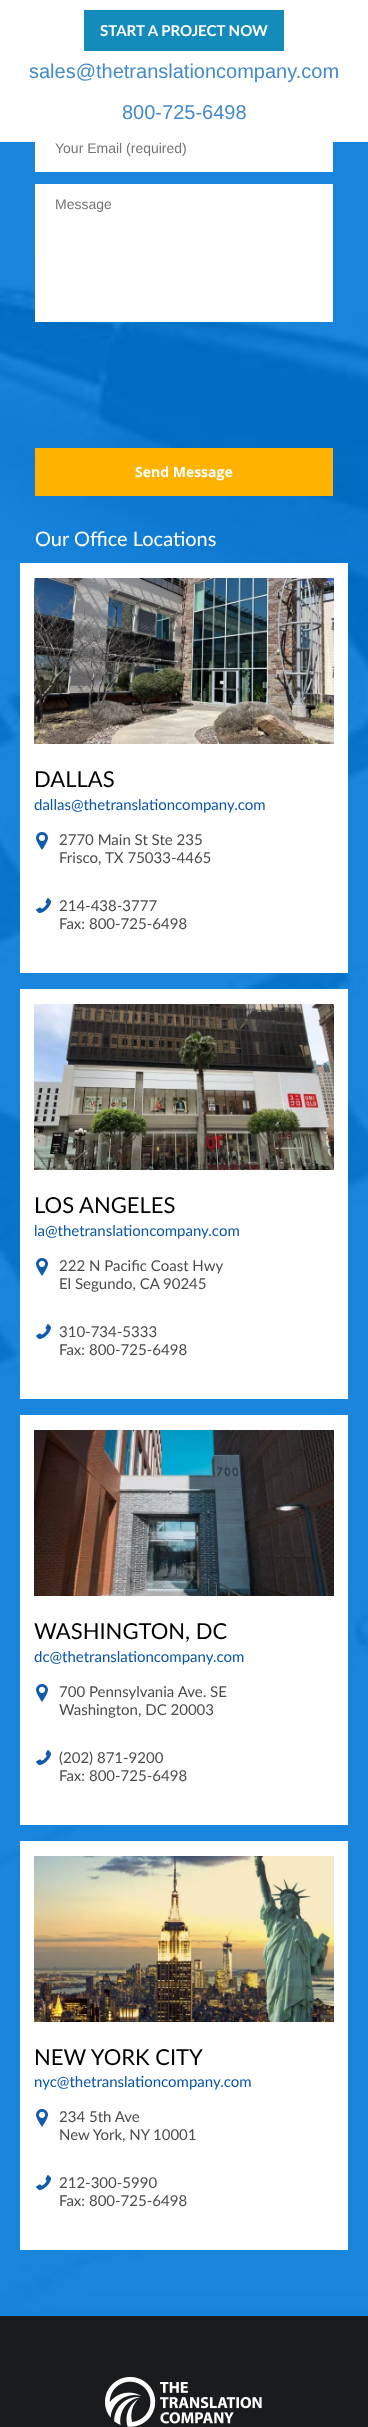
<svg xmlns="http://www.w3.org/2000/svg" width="368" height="2427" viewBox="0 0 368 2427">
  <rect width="100%" height="100%" fill="rgb(255,255,255)"/>
  <rect x="84" y="10" width="200" height="41" fill="rgb(19,140,188)"/>
  <text x="100" y="36" font-family="Lato" font-size="15" font-weight="bold" fill="rgb(255,255,255)">START A PROJECT NOW</text>
  <g font-family="Liberation Sans" font-size="20" fill="rgb(66,139,202)">
    <text x="29" y="78">sales@thetranslationcompany.com</text>
    <text x="122" y="119">800-725-6498</text>
  </g>
  <image x="0" y="142" width="368" height="2174" href="pic1.png"/>
  <rect x="35" y="142" width="298" height="30" fill="rgb(255,255,255)"/>
  <text x="55" y="153" font-family="Liberation Sans" font-size="14" fill="rgb(117,117,117)">Your Email (required)</text>
  <rect x="35" y="184" width="298" height="138" fill="rgb(255,255,255)"/>
  <text x="55" y="209" font-family="Liberation Sans" font-size="14" fill="rgb(117,117,117)">Message</text>
  <rect x="35" y="448" width="298" height="48" fill="rgb(255,179,0)"/>
  <text x="135" y="477" font-family="Open Sans" font-size="14" font-weight="bold" fill="rgb(255,255,255)">Send Message</text>
  <text x="35" y="546" font-family="Lato" font-size="20" fill="rgb(255,255,255)">Our Office Locations</text>
  <rect x="20" y="563" width="328" height="410" fill="rgb(255,255,255)"/>
  <image x="34" y="578" width="300" height="166" href="pic2.png"/>
  <text x="34" y="787" font-family="Lato" font-size="22" fill="rgb(0,0,0)">DALLAS</text>
  <text x="34" y="810" font-family="Lato" font-size="15" fill="rgb(8,85,168)">dallas@thetranslationcompany.com</text>
  <image x="36" y="832" width="12" height="18" href="pic3.png"/>
  <g font-family="Lato" font-size="15" fill="rgb(74,75,77)">
    <text>
      <tspan x="59" y="845">2770 Main St Ste 235</tspan>
      <tspan x="59" y="863">Frisco,</tspan>
    </text>
    <text x="105" y="863">TX 75033-4465</text>
  </g>
  <image x="36" y="898" width="15" height="15" href="pic4.png"/>
  <g font-family="Lato" font-size="15" fill="rgb(74,75,77)">
    <text>
      <tspan x="59" y="911">214-438-3777</tspan>
      <tspan x="59" y="929">Fax: 800-725-6498</tspan>
    </text>
  </g>
  <rect x="20" y="989" width="328" height="410" fill="rgb(255,255,255)"/>
  <image x="34" y="1004" width="300" height="166" href="pic5.png"/>
  <text x="34" y="1213" font-family="Lato" font-size="22" fill="rgb(0,0,0)">LOS ANGELES</text>
  <text x="34" y="1236" font-family="Lato" font-size="15" fill="rgb(8,85,168)">la@thetranslationcompany.com</text>
  <image x="36" y="1258" width="12" height="18" href="pic3.png"/>
  <g font-family="Lato" font-size="15" fill="rgb(74,75,77)">
    <text>
      <tspan x="59" y="1271">222 N Pacific Coast Hwy</tspan>
      <tspan x="59" y="1289">El Segundo, CA</tspan>
    </text>
    <text x="163" y="1289">90245</text>
  </g>
  <image x="36" y="1324" width="15" height="15" href="pic4.png"/>
  <g font-family="Lato" font-size="15" fill="rgb(74,75,77)">
    <text>
      <tspan x="59" y="1337">310-734-5333</tspan>
      <tspan x="59" y="1355">Fax: 800-725-6498</tspan>
    </text>
  </g>
  <rect x="20" y="1415" width="328" height="410" fill="rgb(255,255,255)"/>
  <image x="34" y="1430" width="300" height="166" href="pic6.png"/>
  <text x="34" y="1639" font-family="Lato" font-size="22" fill="rgb(0,0,0)">WASHINGTON, DC</text>
  <text x="34" y="1662" font-family="Lato" font-size="15" fill="rgb(8,85,168)">dc@thetranslationcompany.com</text>
  <image x="36" y="1684" width="12" height="18" href="pic3.png"/>
  <g font-family="Lato" font-size="15" fill="rgb(74,75,77)">
    <text>
      <tspan x="59" y="1697">700 Pennsylvania Ave. SE</tspan>
      <tspan x="59" y="1715">Washington, DC 20003</tspan>
    </text>
  </g>
  <image x="36" y="1750" width="15" height="15" href="pic4.png"/>
  <g font-family="Lato" font-size="15" fill="rgb(74,75,77)">
    <text>
      <tspan x="59" y="1763">(202) 871-9200</tspan>
      <tspan x="59" y="1781">Fax: 800-725-6498</tspan>
    </text>
  </g>
  <rect x="20" y="1841" width="328" height="409" fill="rgb(255,255,255)"/>
  <image x="34" y="1856" width="300" height="166" href="pic7.png"/>
  <text x="34" y="2065" font-family="Lato" font-size="22" fill="rgb(0,0,0)">NEW YORK CITY</text>
  <text x="34" y="2087" font-family="Lato" font-size="15" fill="rgb(8,85,168)">nyc@thetranslationcompany.com</text>
  <image x="36" y="2109" width="12" height="18" href="pic3.png"/>
  <g font-family="Lato" font-size="15" fill="rgb(74,75,77)">
    <text>
      <tspan x="59" y="2122">234 5th Ave</tspan>
      <tspan x="59" y="2140">New York, NY</tspan>
    </text>
    <text x="153" y="2140">10001</text>
  </g>
  <image x="36" y="2175" width="15" height="15" href="pic4.png"/>
  <g font-family="Lato" font-size="15" fill="rgb(74,75,77)">
    <text>
      <tspan x="59" y="2188">212-300-5990</tspan>
      <tspan x="59" y="2206">Fax: 800-725-6498</tspan>
    </text>
  </g>
  <rect x="0" y="2317" width="368" height="110" fill="rgb(26,27,29)"/>
  <rect x="0" y="2316" width="368" height="1" fill="rgb(31,32,34)"/>
  <image x="105" y="2377" width="157" height="50" href="pic8.png"/>
</svg>
